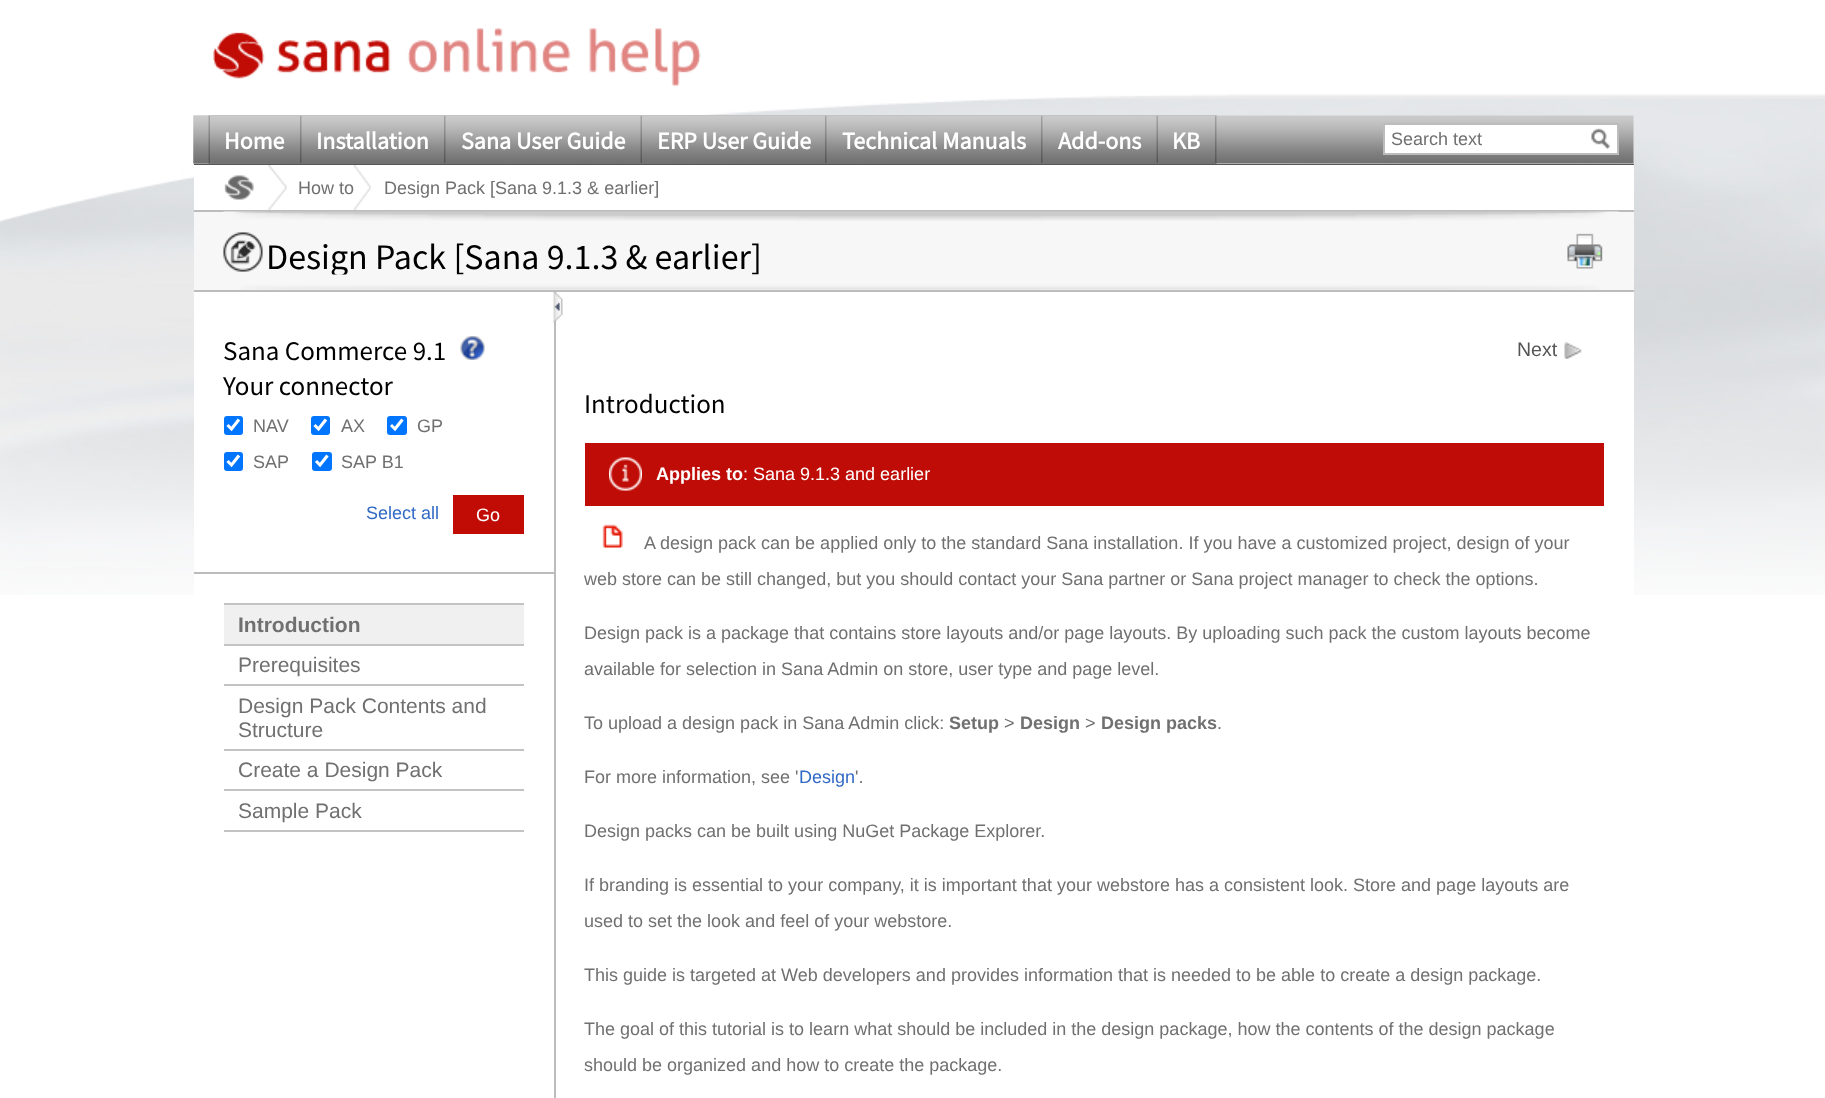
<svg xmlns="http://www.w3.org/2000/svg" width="1825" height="1098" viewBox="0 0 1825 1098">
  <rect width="100%" height="100%" fill="rgb(255,255,255)"/>
  <image x="0" y="94" width="1825" height="501" href="pic1.png"/>
  <image x="213" y="28" width="488" height="58" href="pic2.png"/>
  <image x="193" y="115" width="1441" height="49" href="pic3.png"/>
  <rect x="194" y="164" width="1440" height="1" fill="rgb(86,86,86)"/>
  <image x="193" y="115" width="1024" height="49" href="pic4.png"/>
  <image x="208" y="115" width="1009" height="49" href="pic5.png"/>
  <image x="210" y="115" width="90" height="48" href="pic6.png"/>
  <text x="224" y="149" font-family="Source Sans Pro" font-size="24" font-weight="bold" fill="rgb(255,255,255)">Home</text>
  <image x="301" y="115" width="143" height="48" href="pic7.png"/>
  <text x="316" y="149" font-family="Source Sans Pro" font-size="24" font-weight="bold" fill="rgb(255,255,255)">Installation</text>
  <image x="445" y="115" width="196" height="48" href="pic8.png"/>
  <text x="461" y="149" font-family="Source Sans Pro" font-size="24" font-weight="bold" fill="rgb(255,255,255)">Sana User Guide</text>
  <image x="642" y="115" width="183" height="48" href="pic9.png"/>
  <text x="657" y="149" font-family="Source Sans Pro" font-size="24" font-weight="bold" fill="rgb(255,255,255)">ERP User Guide</text>
  <image x="826" y="115" width="215" height="48" href="pic10.png"/>
  <text x="842" y="149" font-family="Source Sans Pro" font-size="24" font-weight="bold" fill="rgb(255,255,255)">Technical Manuals</text>
  <image x="1042" y="115" width="115" height="48" href="pic11.png"/>
  <text x="1058" y="149" font-family="Source Sans Pro" font-size="24" font-weight="bold" fill="rgb(255,255,255)">Add-ons</text>
  <image x="1158" y="115" width="57" height="48" href="pic12.png"/>
  <text x="1172" y="149" font-family="Source Sans Pro" font-size="24" font-weight="bold" fill="rgb(255,255,255)">KB</text>
  <rect x="1385" y="125" width="232" height="28" fill="rgb(255,255,255)"/>
  <rect x="1383" y="123" width="236" height="2" fill="rgb(188,188,188)"/>
  <rect x="1383" y="153" width="206" height="2" fill="rgb(188,188,188)"/>
  <rect x="1383" y="123" width="2" height="32" fill="rgb(188,188,188)"/>
  <text x="1391" y="145" font-family="Liberation Sans" font-size="18" fill="rgb(112,112,112)">Search text</text>
  <rect x="1617" y="123" width="2" height="32" fill="rgb(188,188,188)"/>
  <rect x="1589" y="153" width="30" height="2" fill="rgb(188,188,188)"/>
  <image x="1591" y="128" width="19" height="21" href="pic13.png"/>
  <rect x="194" y="165" width="1440" height="45" fill="rgb(255,255,255)"/>
  <rect x="194" y="210" width="1440" height="2" fill="rgb(188,188,188)"/>
  <image x="224" y="175" width="30" height="25" href="pic14.png"/>
  <image x="268" y="165" width="19" height="45" href="pic15.png"/>
  <text x="298" y="194" font-family="Liberation Sans" font-size="18" fill="rgb(112,112,112)">How to</text>
  <image x="354" y="165" width="17" height="45" href="pic16.png"/>
  <text x="384" y="194" font-family="Liberation Sans" font-size="18" fill="rgb(112,112,112)">Design Pack [Sana 9.1.3 &amp; earlier]</text>
  <rect x="194" y="292" width="1440" height="303" fill="rgb(255,255,255)"/>
  <rect x="194" y="212" width="1440" height="78" fill="rgb(247,247,247)"/>
  <rect x="194" y="290" width="1440" height="2" fill="rgb(188,188,188)"/>
  <image x="223" y="211" width="1396" height="10" href="pic17.png"/>
  <image x="223" y="232" width="40" height="40" href="pic18.png"/>
  <text x="266" y="269" font-family="Source Sans Pro" font-size="36" fill="rgb(0,0,0)">Design Pack [Sana 9.1.3 &amp; earlier]</text>
  <image x="1567" y="233" width="36" height="36" href="pic19.png"/>
  <image x="241" y="274" width="1358" height="16" href="pic20.png"/>
  <rect x="194" y="572" width="361" height="2" fill="rgb(188,188,188)"/>
  <rect x="554" y="291" width="2" height="807" fill="rgb(188,188,188)"/>
  <image x="553" y="292" width="10" height="31" href="pic21.png"/>
  <g font-family="Source Sans Pro" font-size="27" fill="rgb(0,0,0)">
    <text>
      <tspan x="223" y="360">Sana Commerce 9.1</tspan>
      <tspan x="223" y="395">Your connector</tspan>
    </text>
  </g>
  <image x="460" y="336" width="25" height="24" href="pic22.png"/>
  <rect x="224" y="416" width="19" height="19" rx="3" fill="rgb(0,117,255)"/>
  <path d="M227.5 425L231.5 429L239 419.5" fill="none" stroke="rgb(255,255,255)" stroke-width="3.1"/>
  <text x="253" y="432" font-family="Liberation Sans" font-size="18" fill="rgb(112,112,112)">NAV</text>
  <rect x="311" y="416" width="19" height="19" rx="3" fill="rgb(0,117,255)"/>
  <path d="M314.5 425L318.5 429L326 419.5" fill="none" stroke="rgb(255,255,255)" stroke-width="3.1"/>
  <text x="341" y="432" font-family="Liberation Sans" font-size="18" fill="rgb(112,112,112)">AX</text>
  <rect x="387" y="416" width="20" height="19" rx="3" fill="rgb(0,117,255)"/>
  <path d="M391 425L395 429L402.5 419.5" fill="none" stroke="rgb(255,255,255)" stroke-width="3.1"/>
  <text x="417" y="432" font-family="Liberation Sans" font-size="18" fill="rgb(112,112,112)">GP</text>
  <rect x="224" y="452" width="19" height="19" rx="3" fill="rgb(0,117,255)"/>
  <path d="M227.5 461L231.5 465L239 455.5" fill="none" stroke="rgb(255,255,255)" stroke-width="3.1"/>
  <text x="253" y="468" font-family="Liberation Sans" font-size="18" fill="rgb(112,112,112)">SAP</text>
  <rect x="312" y="452" width="20" height="19" rx="3" fill="rgb(0,117,255)"/>
  <path d="M316 461L320 465L327.5 455.5" fill="none" stroke="rgb(255,255,255)" stroke-width="3.1"/>
  <text x="341" y="468" font-family="Liberation Sans" font-size="18" fill="rgb(112,112,112)">SAP B1</text>
  <text x="366" y="519" font-family="Liberation Sans" font-size="18" fill="rgb(49,106,197)">Select all</text>
  <rect x="453" y="495" width="71" height="39" fill="rgb(193,12,6)"/>
  <text x="476" y="521" font-family="Liberation Sans" font-size="18" fill="rgb(255,255,255)">Go</text>
  <rect x="224" y="830" width="300" height="2" fill="rgb(195,195,195)"/>
  <rect x="224" y="605" width="300" height="39" fill="rgb(240,240,240)"/>
  <rect x="224" y="603" width="300" height="2" fill="rgb(195,195,195)"/>
  <text x="238" y="632" font-family="Liberation Sans" font-size="21" font-weight="bold" fill="rgb(112,112,112)">Introduction</text>
  <rect x="224" y="644" width="300" height="2" fill="rgb(195,195,195)"/>
  <text x="238" y="672" font-family="Liberation Sans" font-size="21" fill="rgb(112,112,112)">Prerequisites</text>
  <rect x="224" y="684" width="300" height="2" fill="rgb(195,195,195)"/>
  <g font-family="Liberation Sans" font-size="21" fill="rgb(112,112,112)">
    <text>
      <tspan x="238" y="713">Design Pack Contents and</tspan>
      <tspan x="238" y="737">Structure</tspan>
    </text>
  </g>
  <rect x="224" y="749" width="300" height="2" fill="rgb(195,195,195)"/>
  <text x="238" y="777" font-family="Liberation Sans" font-size="21" fill="rgb(112,112,112)">Create a Design Pack</text>
  <rect x="224" y="789" width="300" height="2" fill="rgb(195,195,195)"/>
  <text x="238" y="818" font-family="Liberation Sans" font-size="21" fill="rgb(112,112,112)">Sample Pack</text>
  <image x="1564" y="342" width="18" height="18" href="pic23.png"/>
  <text x="1517" y="356" font-family="Liberation Sans" font-size="19.5" fill="rgb(85,85,85)">Next</text>
  <text x="584" y="413" font-family="Source Sans Pro" font-size="27" fill="rgb(0,0,0)">Introduction</text>
  <rect x="585" y="443" width="1019" height="63" fill="rgb(192,12,6)"/>
  <image x="609" y="457" width="33" height="34" href="pic24.png"/>
  <text x="656" y="480" font-family="Liberation Sans" font-size="18" font-weight="bold" fill="rgb(255,255,255)">Applies to</text>
  <text x="743" y="480" font-family="Liberation Sans" font-size="18" fill="rgb(255,255,255)">: Sana 9.1.3 and earlier</text>
  <image x="602" y="524" width="21" height="24" href="pic25.png"/>
  <g font-family="Liberation Sans" font-size="18" fill="rgb(112,112,112)">
    <text x="644" y="549">A design pack can be applied only to the standard Sana installation. If you have a customized project, design of your</text>
    <text x="584" y="585">web store can be still changed, but you should contact your Sana partner or Sana project manager to check the options.</text>
    <text x="584" y="639">Design pack is a package that contains store layouts and/or page layouts. By uploading such pack the custom layouts become</text>
    <text x="584" y="675">available for selection in Sana Admin on store, user type and page level.</text>
    <text x="584" y="729">To upload a design pack in Sana Admin click:</text>
  </g>
  <text x="949" y="729" font-family="Liberation Sans" font-size="18" font-weight="bold" fill="rgb(112,112,112)">Setup</text>
  <text x="1004" y="729" font-family="Liberation Sans" font-size="18" fill="rgb(112,112,112)">&gt;</text>
  <text x="1020" y="729" font-family="Liberation Sans" font-size="18" font-weight="bold" fill="rgb(112,112,112)">Design</text>
  <text x="1085" y="729" font-family="Liberation Sans" font-size="18" fill="rgb(112,112,112)">&gt;</text>
  <text x="1101" y="729" font-family="Liberation Sans" font-size="18" font-weight="bold" fill="rgb(112,112,112)">Design packs</text>
  <g font-family="Liberation Sans" font-size="18" fill="rgb(112,112,112)">
    <text x="1217" y="729">.</text>
    <text x="584" y="783">For more information, see '</text>
  </g>
  <text x="799" y="783" font-family="Liberation Sans" font-size="18" fill="rgb(49,106,197)">Design</text>
  <g font-family="Liberation Sans" font-size="18" fill="rgb(112,112,112)">
    <text x="855" y="783">'.</text>
    <text x="584" y="837">Design packs can be built using NuGet Package Explorer.</text>
    <text x="584" y="891">If branding is essential to your company, it is important that your webstore has a consistent look. Store and page layouts are</text>
    <text x="584" y="927">used to set the look and feel of your webstore.</text>
    <text x="584" y="981">This guide is targeted at Web developers and provides information that is needed to be able to create a design package.</text>
    <text x="584" y="1035">The goal of this tutorial is to learn what should be included in the design package, how the contents of the design package</text>
    <text x="584" y="1071">should be organized and how to create the package.</text>
  </g>
</svg>
